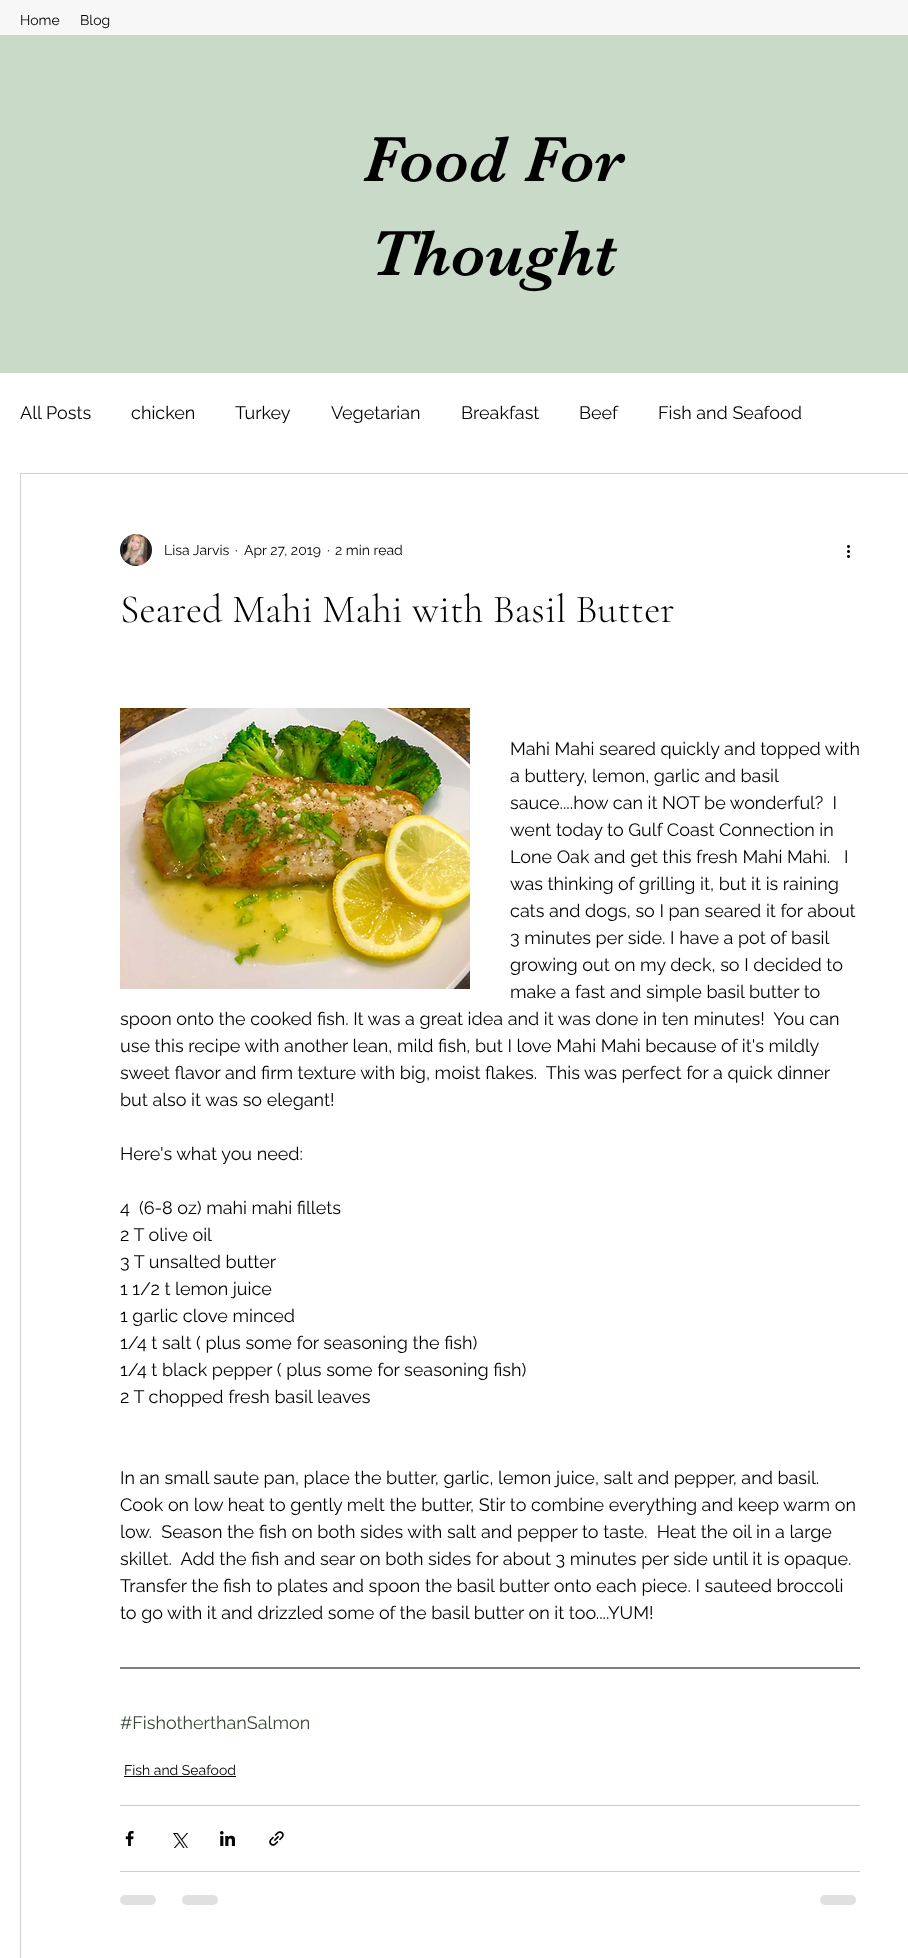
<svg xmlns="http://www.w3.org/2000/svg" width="908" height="1958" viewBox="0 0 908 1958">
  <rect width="100%" height="100%" fill="rgb(255,255,255)"/>
  <rect x="0" y="40" width="908" height="333" fill="rgb(202,218,201)"/>
  <rect x="0" y="0" width="908" height="35" fill="rgb(247,247,247)"/>
  <rect x="0" y="35" width="908" height="5" fill="rgb(201,217,199)"/>
  <g font-family="Raleway" font-size="14" fill="rgb(0,0,0)">
    <text x="20" y="25">Home</text>
    <text x="80" y="25">Blog</text>
  </g>
  <g font-family="'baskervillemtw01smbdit'" font-size="66" fill="rgb(0,0,0)">
    <text x="363" y="181">Food For</text>
    <text x="370" y="275">Thought</text>
  </g>
  <g font-family="Raleway" font-size="18" fill="rgb(0,0,0)">
    <text x="20" y="419">All Posts</text>
    <text x="131" y="419">chicken</text>
    <text x="235" y="419">Turkey</text>
    <text x="331" y="419">Vegetarian</text>
    <text x="461" y="419">Breakfast</text>
    <text x="579" y="419">Beef</text>
    <text x="658" y="419">Fish and Seafood</text>
  </g>
  <rect x="20.5" y="473.5" width="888" height="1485" fill="none" stroke="rgb(207,207,207)"/>
  <image x="120" y="534" width="32" height="32" href="pic1.png"/>
  <g font-family="Raleway" font-size="14" fill="rgb(0,0,0)">
    <text x="164" y="555">Lisa Jarvis</text>
    <text x="235" y="555">·</text>
    <text x="244" y="555">Apr 27, 2019</text>
    <text x="327" y="555">·</text>
    <text x="335" y="555">2 min read</text>
  </g>
  <image x="847" y="545" width="3" height="13" href="pic2.png"/>
  <text x="120" y="622" font-family="Cormorant Garamond" font-size="40" font-weight="300" fill="rgb(0,0,0)">Seared Mahi Mahi with Basil Butter</text>
  <image x="120" y="708" width="350" height="281" href="pic3.png"/>
  <g font-family="Raleway" font-size="18" fill="rgb(0,0,0)">
    <text xml:space="preserve"><tspan x="510" y="755">Mahi Mahi seared quickly and topped with</tspan><tspan x="510" y="782">a buttery, lemon, garlic and basil</tspan><tspan x="510" y="809">sauce....how can it NOT be wonderful?  I</tspan><tspan x="510" y="836">went today to Gulf Coast Connection in</tspan><tspan x="510" y="863">Lone Oak and get this fresh Mahi Mahi.   I</tspan><tspan x="510" y="890">was thinking of grilling it, but it is raining</tspan><tspan x="510" y="917">cats and dogs, so I pan seared it for about</tspan><tspan x="510" y="944">3 minutes per side. I have a pot of basil</tspan><tspan x="510" y="971">growing out on my deck, so I decided to</tspan><tspan x="510" y="998">make a fast and simple basil butter to</tspan></text>
    <text xml:space="preserve"><tspan x="120" y="1025">spoon onto the cooked fish. It was a great idea and it was done in ten minutes!  You can</tspan><tspan x="120" y="1052">use this recipe with another lean, mild fish, but I love Mahi Mahi because of it's mildly</tspan><tspan x="120" y="1079">sweet flavor and firm texture with big, moist flakes.  This was perfect for a quick dinner</tspan><tspan x="120" y="1106">but also it was so elegant!</tspan></text>
    <text x="120" y="1160">Here's what you need:</text>
    <text xml:space="preserve"><tspan x="120" y="1214">4  (6-8 oz) mahi mahi fillets</tspan><tspan x="120" y="1241">2 T olive oil</tspan><tspan x="120" y="1268">3 T unsalted butter</tspan><tspan x="120" y="1295">1 1/2 t lemon juice</tspan><tspan x="120" y="1322">1 garlic clove minced</tspan><tspan x="120" y="1349">1/4 t salt ( plus some for seasoning the fish)</tspan><tspan x="120" y="1376">1/4 t black pepper ( plus some for seasoning fish)</tspan><tspan x="120" y="1403">2 T chopped fresh basil leaves</tspan></text>
    <text xml:space="preserve"><tspan x="120" y="1484">In an small saute pan, place the butter, garlic, lemon juice, salt and pepper, and basil.</tspan><tspan x="120" y="1511">Cook on low heat to gently melt the butter, Stir to combine everything and keep warm on</tspan><tspan x="120" y="1538">low.  Season the fish on both sides with salt and pepper to taste.  Heat the oil in a large</tspan><tspan x="120" y="1565">skillet.  Add the fish and sear on both sides for about 3 minutes per side until it is opaque.</tspan><tspan x="120" y="1592">Transfer the fish to plates and spoon the basil butter onto each piece. I sauteed broccoli</tspan><tspan x="120" y="1619">to go with it and drizzled some of the basil butter on it too....YUM!</tspan></text>
  </g>
  <path d="M120 1668H860" fill="none" stroke="rgb(0,0,0)"/>
  <text x="120" y="1729" font-family="Raleway" font-size="18" fill="rgb(57,71,55)">#FishotherthanSalmon</text>
  <text x="124" y="1775" font-family="Raleway" font-size="14" fill="rgb(0,0,0)">Fish and Seafood</text>
  <rect x="124" y="1776" width="112" height="1" fill="rgb(0,0,0)"/>
  <rect x="120" y="1805" width="740" height="1" fill="rgb(204,204,204)"/>
  <image x="125" y="1831" width="9" height="15" href="pic4.png"/>
  <image x="173" y="1833" width="15" height="15" href="pic5.png"/>
  <image x="220" y="1831" width="15" height="15" href="pic6.png"/>
  <image x="269" y="1831" width="15" height="15" href="pic7.png"/>
  <rect x="120" y="1871" width="740" height="1" fill="rgb(204,204,204)"/>
  <rect x="120" y="1895" width="36" height="10" rx="5" fill="rgb(224,224,224)"/>
  <rect x="182" y="1895" width="36" height="10" rx="5" fill="rgb(224,224,224)"/>
  <rect x="820" y="1895" width="36" height="10" rx="5" fill="rgb(224,224,224)"/>
</svg>
